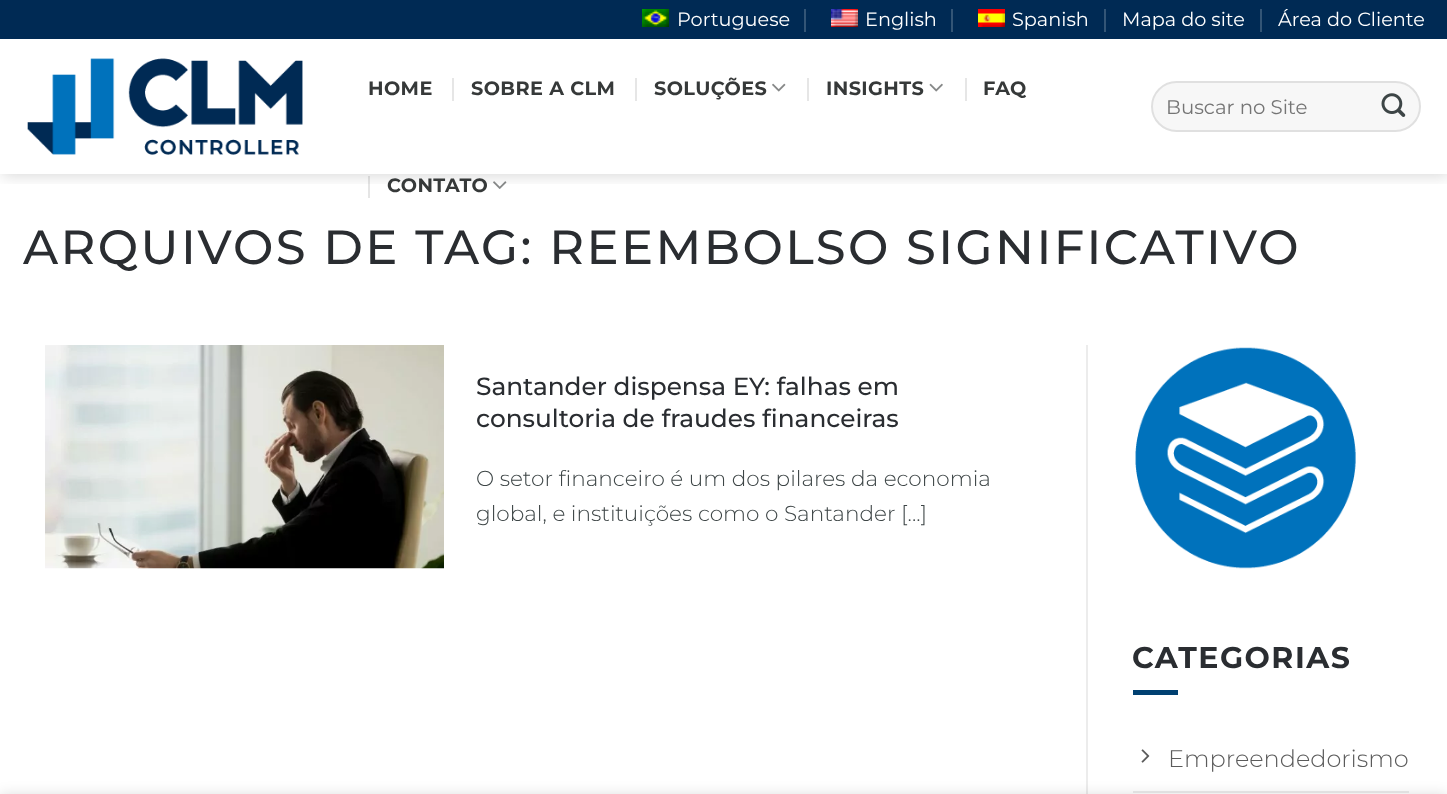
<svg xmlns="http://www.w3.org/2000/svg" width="1447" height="794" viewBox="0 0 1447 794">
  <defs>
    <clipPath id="clip1"><rect x="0" y="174" width="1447" height="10"/></clipPath>
  </defs>
  <rect width="100%" height="100%" fill="rgb(255,255,255)"/>
  <g clip-path="url(#clip1)">
    <rect x="2" y="2" width="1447" height="174" fill="rgba(0,0,0,0.15)" filter="blur(7.5px)"/>
  </g>
  <rect x="0" y="0" width="1447" height="39" fill="rgb(0,42,84)"/>
  <image x="642" y="9" width="27" height="18" href="pic1.png"/>
  <text x="677" y="26" font-family="Montserrat" font-size="19.25" font-weight="100" fill="rgb(255,255,255)">Portuguese</text>
  <rect x="804" y="9" width="2" height="23" fill="rgb(51,85,118)"/>
  <image x="831" y="9" width="27" height="18" href="pic2.png"/>
  <text x="865" y="26" font-family="Montserrat" font-size="19.25" font-weight="100" fill="rgb(255,255,255)">English</text>
  <rect x="951" y="9" width="2" height="23" fill="rgb(51,85,118)"/>
  <image x="978" y="9" width="27" height="18" href="pic3.png"/>
  <text x="1012" y="26" font-family="Montserrat" font-size="19.25" font-weight="100" fill="rgb(255,255,255)">Spanish</text>
  <rect x="1104" y="9" width="2" height="23" fill="rgb(51,85,118)"/>
  <text x="1122" y="26" font-family="Montserrat" font-size="19.25" font-weight="100" fill="rgb(255,255,255)">Mapa do site</text>
  <rect x="1260" y="9" width="2" height="23" fill="rgb(51,85,118)"/>
  <text x="1278" y="26" font-family="Montserrat" font-size="19.25" font-weight="100" fill="rgb(255,255,255)">Área do Cliente</text>
  <image x="27" y="58" width="276" height="97" href="pic4.png"/>
  <text x="368" y="95" font-family="Montserrat" font-size="19.25" font-weight="bold" letter-spacing="0.4" fill="rgb(54,57,57)">HOME</text>
  <rect x="452" y="78" width="2" height="23" fill="rgb(230,230,230)"/>
  <text x="471" y="95" font-family="Montserrat" font-size="19.25" font-weight="bold" letter-spacing="0.4" fill="rgb(54,57,57)">SOBRE A CLM</text>
  <rect x="635" y="78" width="2" height="23" fill="rgb(230,230,230)"/>
  <text x="654" y="95" font-family="Montserrat" font-size="19.25" font-weight="bold" letter-spacing="0.4" fill="rgb(54,57,57)">SOLUÇÕES</text>
  <image x="772" y="83" width="14" height="9" href="pic5.png"/>
  <rect x="807" y="78" width="2" height="23" fill="rgb(230,230,230)"/>
  <text x="826" y="95" font-family="Montserrat" font-size="19.25" font-weight="bold" letter-spacing="0.4" fill="rgb(54,57,57)">INSIGHTS</text>
  <image x="929" y="83" width="14" height="9" href="pic6.png"/>
  <rect x="965" y="78" width="2" height="23" fill="rgb(230,230,230)"/>
  <text x="983" y="95" font-family="Montserrat" font-size="19.25" font-weight="bold" letter-spacing="0.4" fill="rgb(54,57,57)">FAQ</text>
  <rect x="368" y="176" width="2" height="22" fill="rgba(0,0,0,0.1)"/>
  <text x="387" y="192" font-family="Montserrat" font-size="19.25" font-weight="bold" letter-spacing="0.4" fill="rgb(54,57,57)">CONTATO</text>
  <image x="493" y="181" width="14" height="8" href="pic7.png"/>
  <rect x="1151" y="81" width="270" height="51" rx="25.5" fill="rgb(247,247,247)"/>
  <rect x="1152" y="82" width="268" height="49" rx="24.5" fill="none" stroke="rgba(0,0,0,0.09)" stroke-width="2"/>
  <text x="1166" y="114" font-family="Montserrat" font-size="19.75" font-weight="100" fill="rgb(117,117,117)">Buscar no Site</text>
  <image x="1381" y="93" width="25" height="24" href="pic8.png"/>
  <text x="23" y="264" font-family="Montserrat" font-size="48" font-weight="500" letter-spacing="2.4" fill="rgb(42,45,49)">ARQUIVOS DE TAG: REEMBOLSO SIGNIFICATIVO</text>
  <image x="45" y="345" width="399" height="224" href="pic9.png"/>
  <g font-family="Montserrat" font-size="24.8" font-weight="500" fill="rgb(42,45,49)">
    <text>
      <tspan x="476" y="395">Santander dispensa EY: falhas em</tspan>
      <tspan x="476" y="427">consultoria de fraudes financeiras</tspan>
    </text>
  </g>
  <g font-family="Montserrat" font-size="21.6" font-weight="300" fill="rgb(61,69,70)">
    <text>
      <tspan x="476" y="486">O setor financeiro é um dos pilares da economia</tspan>
      <tspan x="476" y="521">global, e instituições como o Santander [...]</tspan>
    </text>
  </g>
  <rect x="1086" y="345" width="2" height="449" fill="rgb(236,236,236)"/>
  <image x="1135" y="347" width="221" height="222" href="pic10.png"/>
  <text x="1132" y="668" font-family="Montserrat" font-size="30" font-weight="bold" letter-spacing="1.5" fill="rgb(42,45,49)">CATEGORIAS</text>
  <rect x="1133" y="690" width="45" height="5" fill="rgb(0,64,113)"/>
  <rect x="1133" y="791" width="276" height="2" fill="rgb(236,236,236)"/>
  <image x="1141" y="749" width="9" height="14" href="pic11.png"/>
  <text x="1168" y="767" font-family="Montserrat" font-size="24" font-weight="300" fill="rgb(91,91,91)">Empreendedorismo</text>
  <rect x="0" y="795" width="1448" height="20" fill="rgba(0,0,0,0.14)" filter="blur(7px)"/>
</svg>
